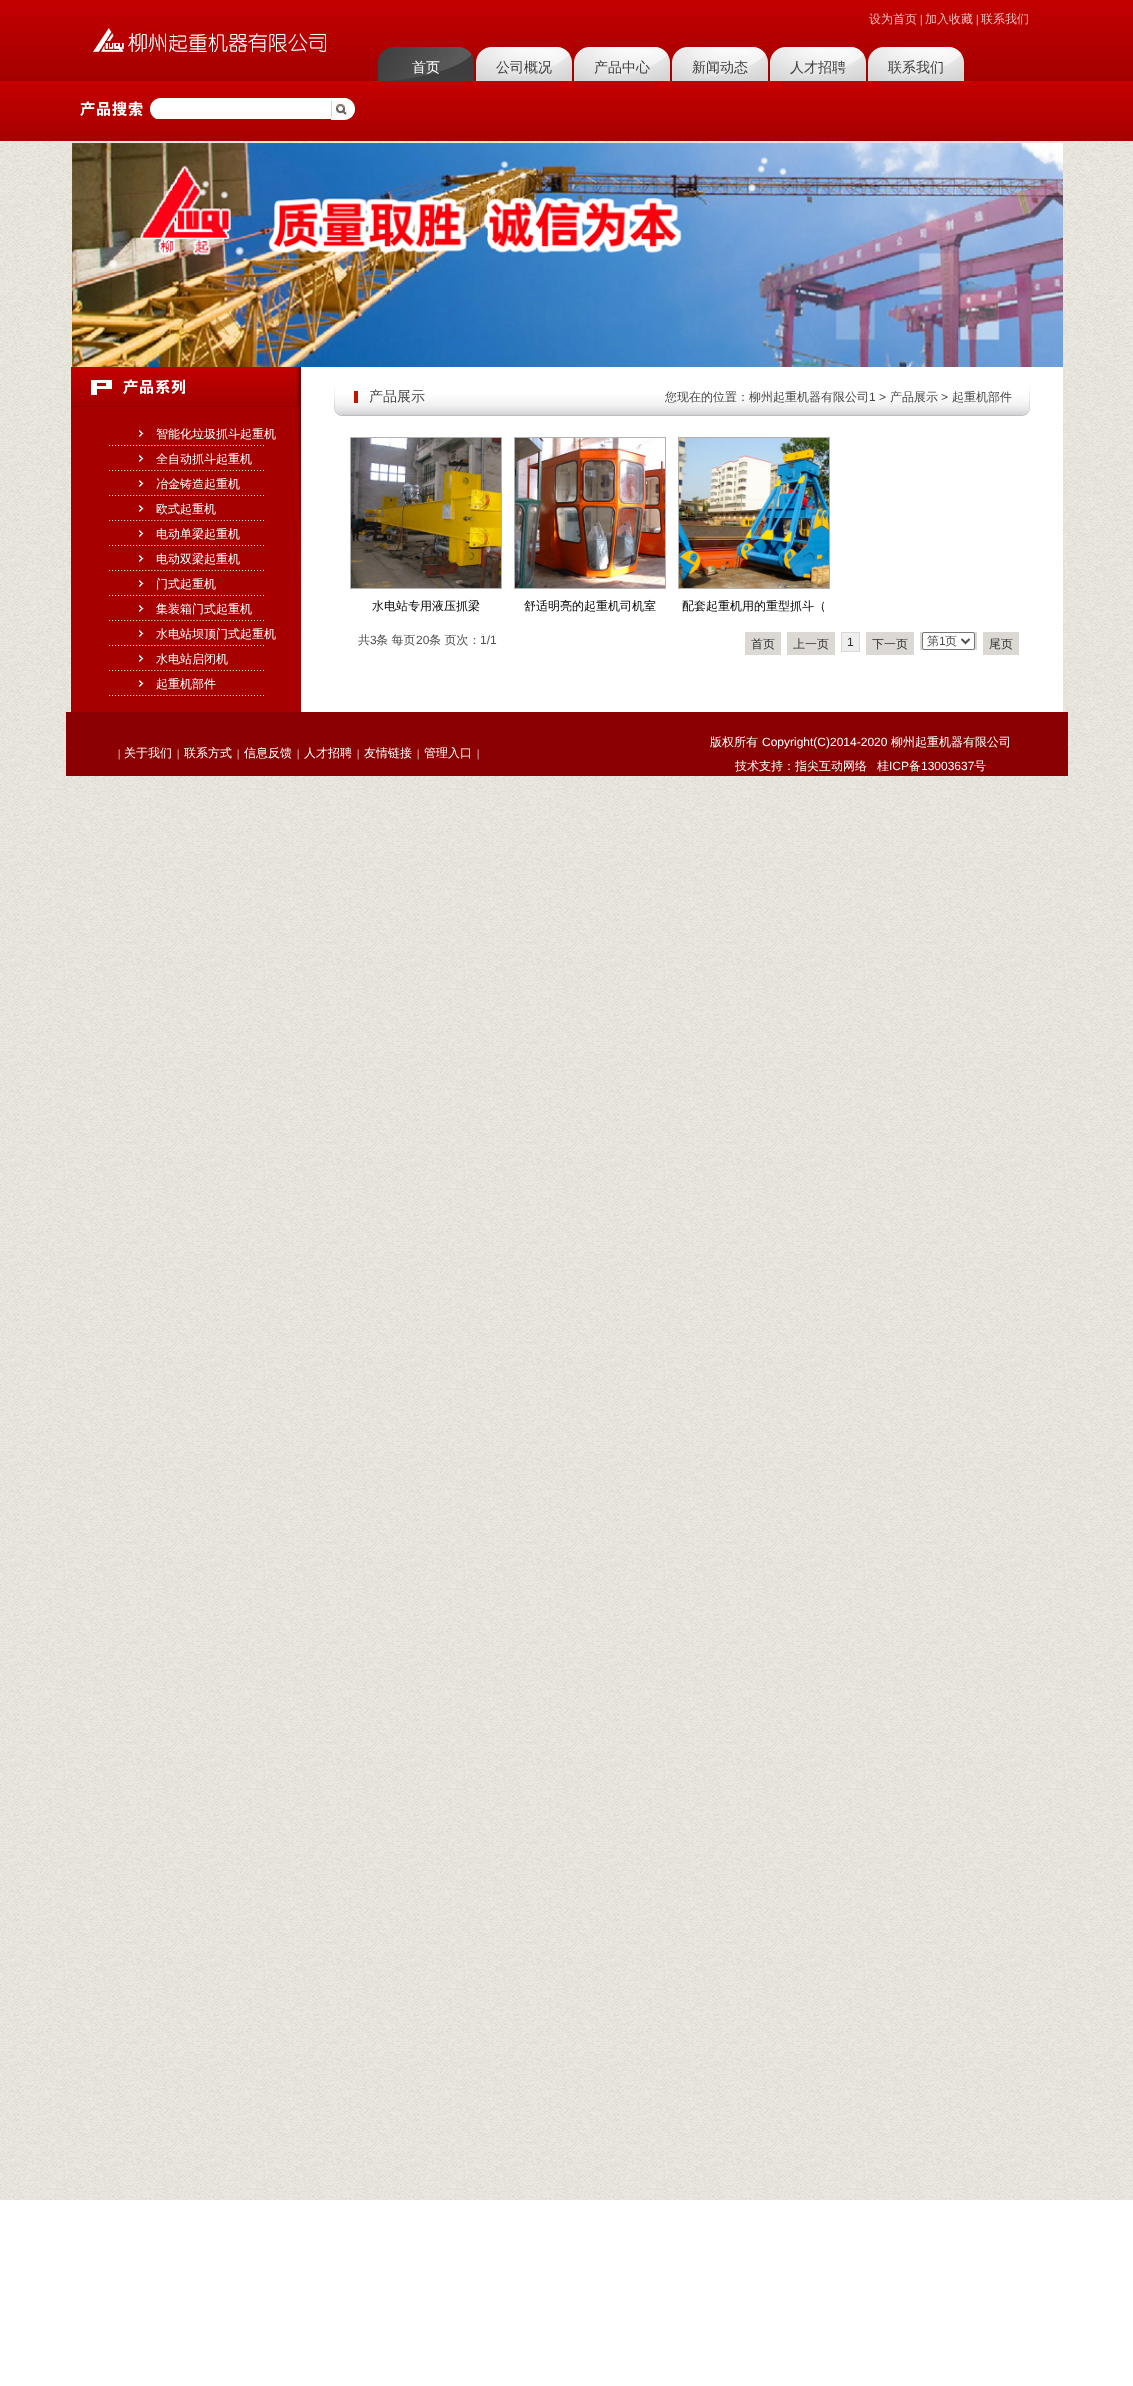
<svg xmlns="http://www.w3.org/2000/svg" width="1133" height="2386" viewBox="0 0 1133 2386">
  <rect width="100%" height="100%" fill="rgb(255,255,255)"/>
  <image x="0" y="0" width="1133" height="2200" href="pic1.png"/>
  <text x="869" y="23" font-family="WenQuanYi Zen Hei" font-size="12" font-weight="500" fill="rgb(238,189,189)">设为首页</text>
  <text x="920" y="23" font-family="Liberation Serif" font-size="12" fill="rgb(255,255,255)">|</text>
  <text x="925" y="23" font-family="WenQuanYi Zen Hei" font-size="12" font-weight="500" fill="rgb(238,189,189)">加入收藏</text>
  <text x="976" y="23" font-family="Liberation Serif" font-size="12" fill="rgb(255,255,255)">|</text>
  <text x="981" y="23" font-family="WenQuanYi Zen Hei" font-size="12" font-weight="500" fill="rgb(238,189,189)">联系我们</text>
  <image x="93" y="27" width="233" height="30" href="pic2.png"/>
  <image x="378" y="47" width="96" height="34" href="pic3.png"/>
  <text x="412" y="72" font-family="WenQuanYi Zen Hei" font-size="14" font-weight="500" fill="rgb(255,255,255)">首页</text>
  <image x="476" y="47" width="96" height="34" href="pic4.png"/>
  <text x="496" y="72" font-family="WenQuanYi Zen Hei" font-size="14" font-weight="500" fill="rgb(61,61,61)">公司概况</text>
  <image x="574" y="47" width="96" height="34" href="pic4.png"/>
  <text x="594" y="72" font-family="WenQuanYi Zen Hei" font-size="14" font-weight="500" fill="rgb(61,61,61)">产品中心</text>
  <image x="672" y="47" width="96" height="34" href="pic4.png"/>
  <text x="692" y="72" font-family="WenQuanYi Zen Hei" font-size="14" font-weight="500" fill="rgb(61,61,61)">新闻动态</text>
  <image x="770" y="47" width="96" height="34" href="pic4.png"/>
  <text x="790" y="72" font-family="WenQuanYi Zen Hei" font-size="14" font-weight="500" fill="rgb(61,61,61)">人才招聘</text>
  <image x="868" y="47" width="96" height="34" href="pic4.png"/>
  <text x="888" y="72" font-family="WenQuanYi Zen Hei" font-size="14" font-weight="500" fill="rgb(61,61,61)">联系我们</text>
  <image x="80" y="98" width="80" height="21" href="pic5.png"/>
  <rect x="160" y="98" width="171" height="21" fill="rgb(255,255,255)"/>
  <image x="331" y="98" width="24" height="22" href="pic6.png"/>
  <image x="72" y="143" width="991" height="224" href="pic7.png"/>
  <image x="71" y="367" width="992" height="345" href="pic8.png"/>
  <image x="334" y="385" width="688" height="31" href="pic9.png"/>
  <text x="369" y="401" font-family="WenQuanYi Zen Hei" font-size="14" font-weight="500" fill="rgb(70,70,70)">产品展示</text>
  <text x="665" y="401" font-family="WenQuanYi Zen Hei" font-size="12" font-weight="500" fill="rgb(70,70,70)">您现在的位置：柳州起重机器有限公司</text>
  <text x="869" y="401" font-family="Liberation Sans" font-size="12" fill="rgb(70,70,70)">1 &gt;</text>
  <text x="890" y="401" font-family="WenQuanYi Zen Hei" font-size="12" font-weight="500" fill="rgb(70,70,70)">产品展示</text>
  <text x="941" y="401" font-family="Liberation Sans" font-size="12" fill="rgb(70,70,70)">&gt;</text>
  <text x="952" y="401" font-family="WenQuanYi Zen Hei" font-size="12" font-weight="500" fill="rgb(70,70,70)">起重机部件</text>
  <image x="1022" y="385" width="8" height="31" href="pic10.png"/>
  <image x="71" y="367" width="230" height="216" href="pic11.png"/>
  <image x="109" y="430" width="155" height="16" href="pic12.png"/>
  <text x="156" y="438" font-family="WenQuanYi Zen Hei" font-size="12" font-weight="500" fill="rgb(255,255,255)">智能化垃圾抓斗起重机</text>
  <image x="109" y="455" width="155" height="16" href="pic12.png"/>
  <text x="156" y="463" font-family="WenQuanYi Zen Hei" font-size="12" font-weight="500" fill="rgb(255,255,255)">全自动抓斗起重机</text>
  <image x="109" y="480" width="155" height="16" href="pic12.png"/>
  <text x="156" y="488" font-family="WenQuanYi Zen Hei" font-size="12" font-weight="500" fill="rgb(255,255,255)">冶金铸造起重机</text>
  <image x="109" y="505" width="155" height="16" href="pic12.png"/>
  <text x="156" y="513" font-family="WenQuanYi Zen Hei" font-size="12" font-weight="500" fill="rgb(255,255,255)">欧式起重机</text>
  <image x="109" y="530" width="155" height="16" href="pic12.png"/>
  <text x="156" y="538" font-family="WenQuanYi Zen Hei" font-size="12" font-weight="500" fill="rgb(255,255,255)">电动单梁起重机</text>
  <image x="109" y="555" width="155" height="16" href="pic12.png"/>
  <text x="156" y="563" font-family="WenQuanYi Zen Hei" font-size="12" font-weight="500" fill="rgb(255,255,255)">电动双梁起重机</text>
  <image x="109" y="580" width="155" height="16" href="pic12.png"/>
  <text x="156" y="588" font-family="WenQuanYi Zen Hei" font-size="12" font-weight="500" fill="rgb(255,255,255)">门式起重机</text>
  <image x="109" y="605" width="155" height="16" href="pic12.png"/>
  <text x="156" y="613" font-family="WenQuanYi Zen Hei" font-size="12" font-weight="500" fill="rgb(255,255,255)">集装箱门式起重机</text>
  <image x="109" y="630" width="155" height="16" href="pic12.png"/>
  <text x="156" y="638" font-family="WenQuanYi Zen Hei" font-size="12" font-weight="500" fill="rgb(255,255,255)">水电站坝顶门式起重机</text>
  <image x="109" y="655" width="155" height="16" href="pic12.png"/>
  <text x="156" y="663" font-family="WenQuanYi Zen Hei" font-size="12" font-weight="500" fill="rgb(255,255,255)">水电站启闭机</text>
  <image x="109" y="680" width="155" height="16" href="pic12.png"/>
  <text x="156" y="688" font-family="WenQuanYi Zen Hei" font-size="12" font-weight="500" fill="rgb(255,255,255)">起重机部件</text>
  <rect x="350.5" y="437.5" width="151" height="151" fill="none" stroke="rgb(177,177,177)"/>
  <image x="351" y="438" width="150" height="150" href="pic13.png"/>
  <text x="372" y="610" font-family="WenQuanYi Zen Hei" font-size="12" font-weight="500" fill="rgb(0,0,0)">水电站专用液压抓梁</text>
  <rect x="514.5" y="437.5" width="151" height="151" fill="none" stroke="rgb(177,177,177)"/>
  <image x="515" y="438" width="150" height="150" href="pic14.png"/>
  <text x="524" y="610" font-family="WenQuanYi Zen Hei" font-size="12" font-weight="500" fill="rgb(0,0,0)">舒适明亮的起重机司机室</text>
  <rect x="678.5" y="437.5" width="151" height="151" fill="none" stroke="rgb(177,177,177)"/>
  <image x="679" y="438" width="150" height="150" href="pic15.png"/>
  <text x="682" y="610" font-family="WenQuanYi Zen Hei" font-size="12" font-weight="500" fill="rgb(0,0,0)">配套起重机用的重型抓斗（</text>
  <text x="358" y="644" font-family="WenQuanYi Zen Hei" font-size="12" font-weight="500" fill="rgb(80,80,80)">共</text>
  <text x="370" y="644" font-family="Liberation Sans" font-size="12" fill="rgb(80,80,80)">3</text>
  <text x="376" y="644" font-family="WenQuanYi Zen Hei" font-size="12" font-weight="500" fill="rgb(80,80,80)">条 每页</text>
  <text x="416" y="644" font-family="Liberation Sans" font-size="12" fill="rgb(80,80,80)">20</text>
  <text x="429" y="644" font-family="WenQuanYi Zen Hei" font-size="12" font-weight="500" fill="rgb(80,80,80)">条 页次：</text>
  <text x="480" y="644" font-family="Liberation Sans" font-size="12" fill="rgb(80,80,80)">1/1</text>
  <rect x="745" y="632" width="36" height="23" fill="rgb(220,217,212)"/>
  <text x="751" y="648" font-family="WenQuanYi Zen Hei" font-size="12" font-weight="500" fill="rgb(48,48,48)">首页</text>
  <rect x="787" y="632" width="48" height="23" fill="rgb(220,217,212)"/>
  <text x="793" y="648" font-family="WenQuanYi Zen Hei" font-size="12" font-weight="500" fill="rgb(48,48,48)">上一页</text>
  <rect x="841.5" y="632.5" width="18" height="19" fill="rgb(238,238,238)" stroke="rgb(220,217,212)"/>
  <text x="847" y="646" font-family="Liberation Sans" font-size="12" fill="rgb(48,48,48)">1</text>
  <rect x="866" y="632" width="48" height="23" fill="rgb(220,217,212)"/>
  <text x="872" y="648" font-family="WenQuanYi Zen Hei" font-size="12" font-weight="500" fill="rgb(48,48,48)">下一页</text>
  <rect x="920" y="632" width="57" height="18" fill="rgb(220,217,212)"/>
  <rect x="922.5" y="632.5" width="52" height="17" rx="1.5" fill="rgb(255,255,255)" stroke="rgb(118,118,118)"/>
  <path d="M961.5 639L965.5 643L969.5 639" fill="none" stroke="rgb(80,80,80)" stroke-width="2"/>
  <text x="927" y="645" font-family="WenQuanYi Zen Hei" font-size="12" font-weight="500" fill="rgb(80,80,80)">第</text>
  <text x="939" y="645" font-family="Liberation Sans" font-size="12" fill="rgb(80,80,80)">1</text>
  <text x="945" y="645" font-family="WenQuanYi Zen Hei" font-size="12" font-weight="500" fill="rgb(80,80,80)">页</text>
  <rect x="983" y="632" width="36" height="23" fill="rgb(220,217,212)"/>
  <text x="989" y="648" font-family="WenQuanYi Zen Hei" font-size="12" font-weight="500" fill="rgb(48,48,48)">尾页</text>
  <rect x="66" y="712" width="1002" height="64" fill="rgb(139,0,0)"/>
  <text x="118" y="757" font-family="Liberation Serif" font-size="11" fill="rgb(255,255,255)">|</text>
  <text x="124" y="757" font-family="WenQuanYi Zen Hei" font-size="12" font-weight="500" fill="rgb(255,255,255)">关于我们</text>
  <text x="177" y="757" font-family="Liberation Serif" font-size="11" fill="rgb(255,255,255)">|</text>
  <text x="184" y="757" font-family="WenQuanYi Zen Hei" font-size="12" font-weight="500" fill="rgb(255,255,255)">联系方式</text>
  <text x="237" y="757" font-family="Liberation Serif" font-size="11" fill="rgb(255,255,255)">|</text>
  <text x="244" y="757" font-family="WenQuanYi Zen Hei" font-size="12" font-weight="500" fill="rgb(255,255,255)">信息反馈</text>
  <text x="297" y="757" font-family="Liberation Serif" font-size="11" fill="rgb(255,255,255)">|</text>
  <text x="304" y="757" font-family="WenQuanYi Zen Hei" font-size="12" font-weight="500" fill="rgb(255,255,255)">人才招聘</text>
  <text x="357" y="757" font-family="Liberation Serif" font-size="11" fill="rgb(255,255,255)">|</text>
  <text x="364" y="757" font-family="WenQuanYi Zen Hei" font-size="12" font-weight="500" fill="rgb(255,255,255)">友情链接</text>
  <text x="417" y="757" font-family="Liberation Serif" font-size="11" fill="rgb(255,255,255)">|</text>
  <text x="424" y="757" font-family="WenQuanYi Zen Hei" font-size="12" font-weight="500" fill="rgb(255,255,255)">管理入口</text>
  <text x="477" y="757" font-family="Liberation Serif" font-size="11" fill="rgb(255,255,255)">|</text>
  <text x="710" y="746" font-family="WenQuanYi Zen Hei" font-size="12" font-weight="500" fill="rgb(255,255,255)">版权所有</text>
  <text x="762" y="746" font-family="Liberation Sans" font-size="12" fill="rgb(255,255,255)">Copyright(C)2014-2020</text>
  <g font-family="WenQuanYi Zen Hei" font-size="12" font-weight="500" fill="rgb(255,255,255)">
    <text x="891" y="746">柳州起重机器有限公司</text>
    <text x="735" y="770">技术支持：指尖互动网络</text>
    <text x="877" y="770">桂</text>
  </g>
  <text x="889" y="770" font-family="Liberation Sans" font-size="12" fill="rgb(255,255,255)">ICP</text>
  <text x="909" y="770" font-family="WenQuanYi Zen Hei" font-size="12" font-weight="500" fill="rgb(255,255,255)">备</text>
  <text x="921" y="770" font-family="Liberation Sans" font-size="12" fill="rgb(255,255,255)">13003637</text>
  <text x="974" y="770" font-family="WenQuanYi Zen Hei" font-size="12" font-weight="500" fill="rgb(255,255,255)">号</text>
</svg>
